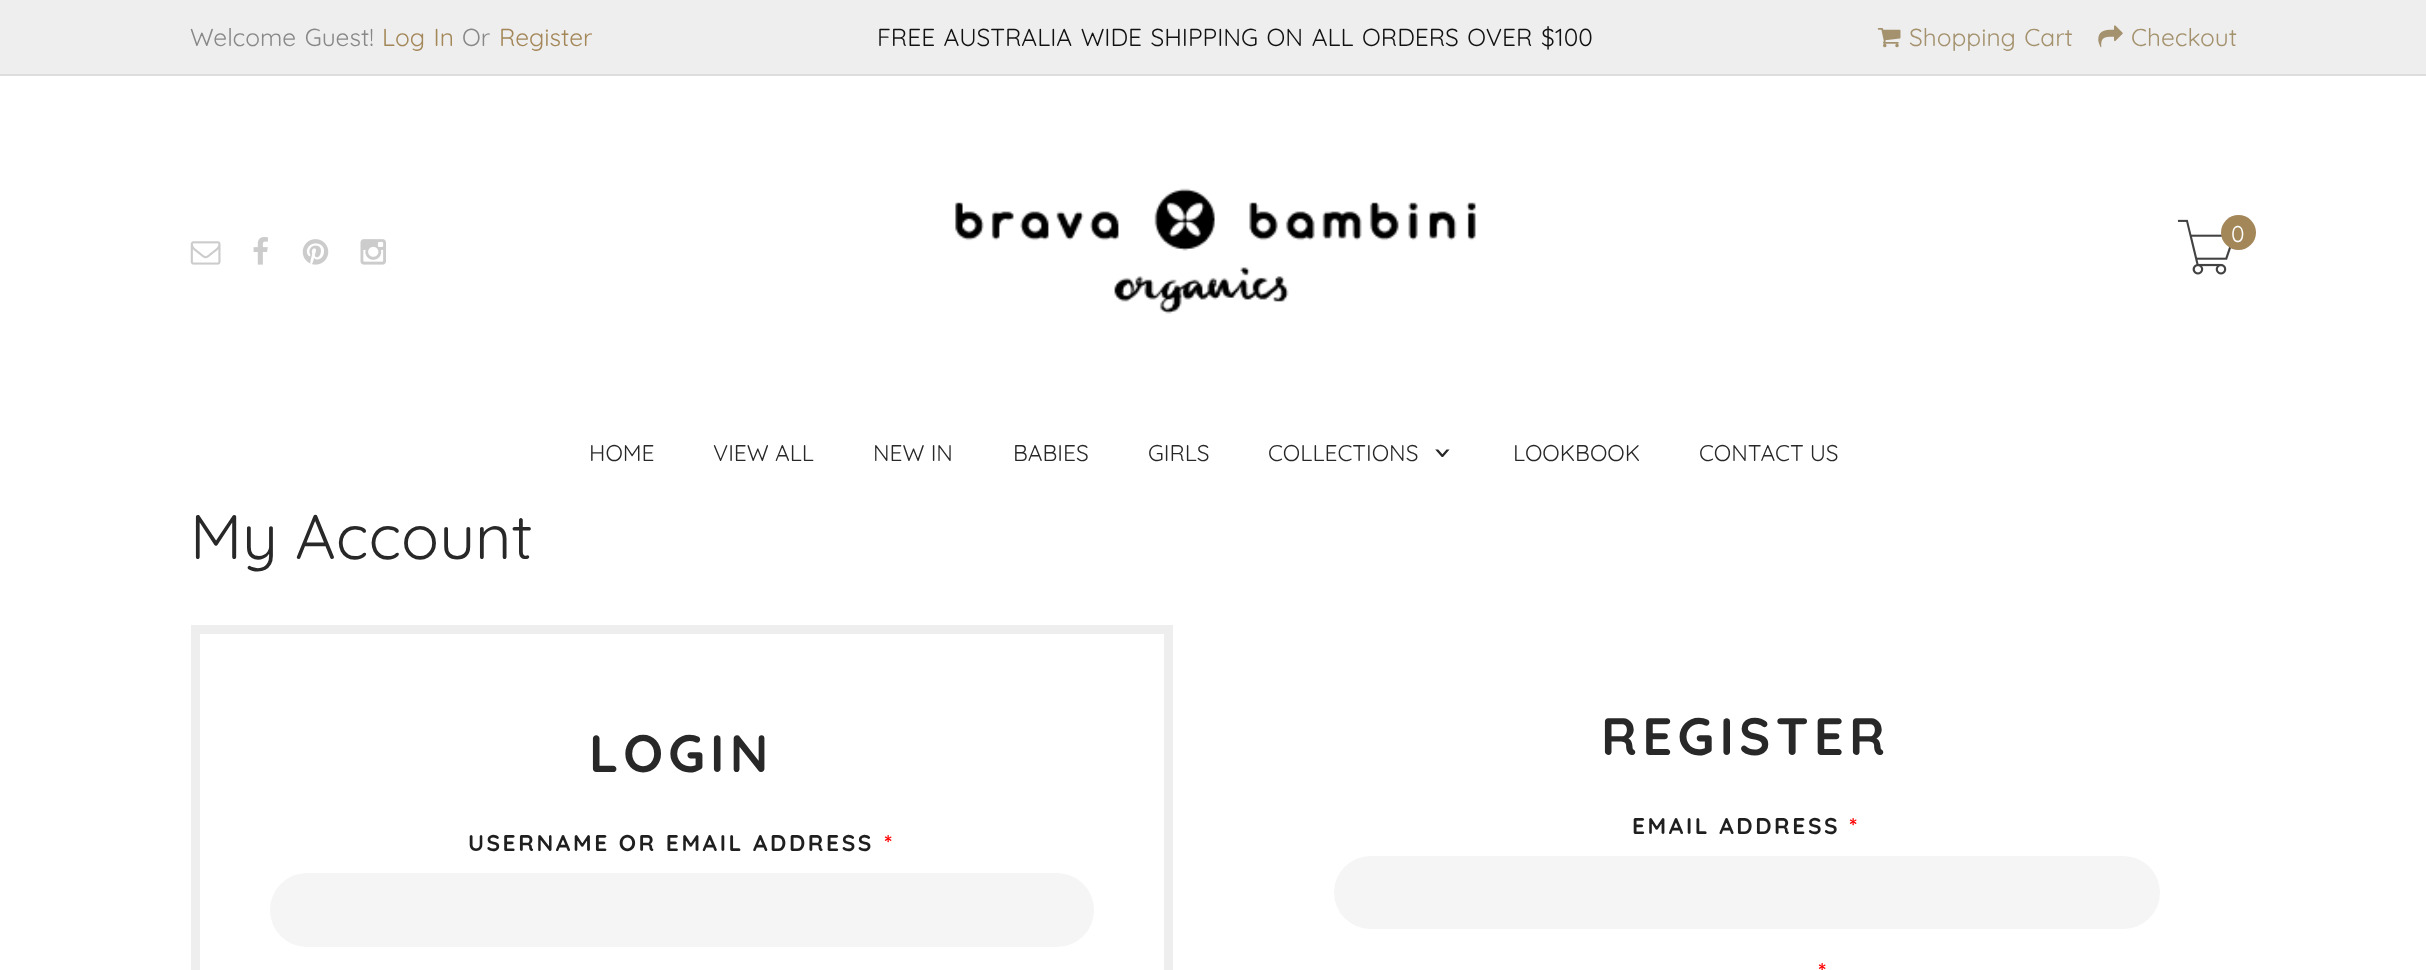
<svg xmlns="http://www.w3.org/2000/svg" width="2426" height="970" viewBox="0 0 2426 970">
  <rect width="100%" height="100%" fill="rgb(255,255,255)"/>
  <rect x="0" y="0" width="2426" height="74" fill="rgb(238,238,238)"/>
  <rect x="0" y="74" width="2426" height="2" fill="rgb(221,221,221)"/>
  <text x="190" y="46" word-spacing="1.75" font-family="Quicksand" font-size="24.5" fill="rgb(136,136,136)">Welcome Guest!</text>
  <text x="382" y="46" word-spacing="1.75" font-family="Quicksand" font-size="24.5" fill="rgb(163,135,88)">Log In</text>
  <text x="462" y="46" font-family="Quicksand" font-size="24.5" fill="rgb(136,136,136)">Or</text>
  <text x="499" y="46" font-family="Quicksand" font-size="24.5" fill="rgb(163,135,88)">Register</text>
  <text x="877" y="46" word-spacing="1.75" font-family="Quicksand" font-size="24.5" fill="rgb(17,17,17)">FREE AUSTRALIA WIDE SHIPPING ON ALL ORDERS OVER $100</text>
  <image x="1877" y="28" width="24" height="20" href="pic1.png"/>
  <text x="1909" y="46" word-spacing="1.75" font-family="Quicksand" font-size="24.5" fill="rgb(164,145,109)">Shopping Cart</text>
  <image x="2098" y="25" width="25" height="23" href="pic2.png"/>
  <text x="2131" y="46" font-family="Quicksand" font-size="24.5" fill="rgb(164,145,109)">Checkout</text>
  <image x="955" y="188" width="521" height="126" href="pic3.png"/>
  <image x="2177" y="219" width="54" height="56" href="pic4.png"/>
  <circle cx="2238.5" cy="232.5" r="17.5" fill="rgb(163,135,88)"/>
  <text x="2231" y="242" font-family="Quicksand" font-size="22.75" fill="rgb(255,255,255)">0</text>
  <image x="190" y="241" width="31" height="24" href="pic5.png"/>
  <image x="253" y="237" width="15" height="28" href="pic6.png"/>
  <image x="302" y="239" width="27" height="26" href="pic7.png"/>
  <image x="360" y="239" width="26" height="26" href="pic8.png"/>
  <g font-family="Quicksand" font-size="22.75" fill="rgb(40,40,40)">
    <text x="589" y="461">HOME</text>
    <text x="713" y="461">VIEW ALL</text>
    <text x="873" y="461">NEW IN</text>
    <text x="1013" y="461">BABIES</text>
    <text x="1148" y="461">GIRLS</text>
    <text x="1268" y="461">COLLECTIONS</text>
  </g>
  <text x="1433" y="443" transform="rotate(90 1433 443)" font-family="DejaVu Sans Mono" font-size="32" fill="rgb(40,40,40)">›</text>
  <g font-family="Quicksand" font-size="22.75" fill="rgb(40,40,40)">
    <text x="1513" y="461">LOOKBOOK</text>
    <text x="1699" y="461">CONTACT US</text>
  </g>
  <text x="190" y="559" font-family="Quicksand" font-size="63" fill="rgb(40,40,40)">My Account</text>
  <rect x="195.5" y="629.5" width="973" height="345" fill="none" stroke="rgb(238,238,238)" stroke-width="9"/>
  <text x="589" y="772" font-family="Quicksand" font-size="52.5" font-weight="bold" letter-spacing="5.25" fill="rgb(40,40,40)">LOGIN</text>
  <text x="468" y="851" font-family="Quicksand" font-size="22.75" font-weight="bold" letter-spacing="2.6" fill="rgb(31,31,31)">USERNAME OR EMAIL ADDRESS</text>
  <text x="884" y="851" font-family="Quicksand" font-size="22.75" font-weight="bold" letter-spacing="2.6" fill="rgb(255,0,0)">*</text>
  <rect x="270" y="873" width="824" height="74" rx="37" fill="rgb(245,245,245)"/>
  <text x="1601" y="755" font-family="Quicksand" font-size="52.5" font-weight="bold" letter-spacing="5.25" fill="rgb(40,40,40)">REGISTER</text>
  <text x="1632" y="834" font-family="Quicksand" font-size="22.75" font-weight="bold" letter-spacing="2.6" fill="rgb(31,31,31)">EMAIL ADDRESS</text>
  <text x="1849" y="834" font-family="Quicksand" font-size="22.75" font-weight="bold" letter-spacing="2.6" fill="rgb(255,0,0)">*</text>
  <rect x="1334" y="856" width="826" height="73" rx="36.5" fill="rgb(245,245,245)"/>
  <text x="1818" y="979" font-family="Quicksand" font-size="22.75" font-weight="bold" letter-spacing="2.6" fill="rgb(255,0,0)">*</text>
</svg>
